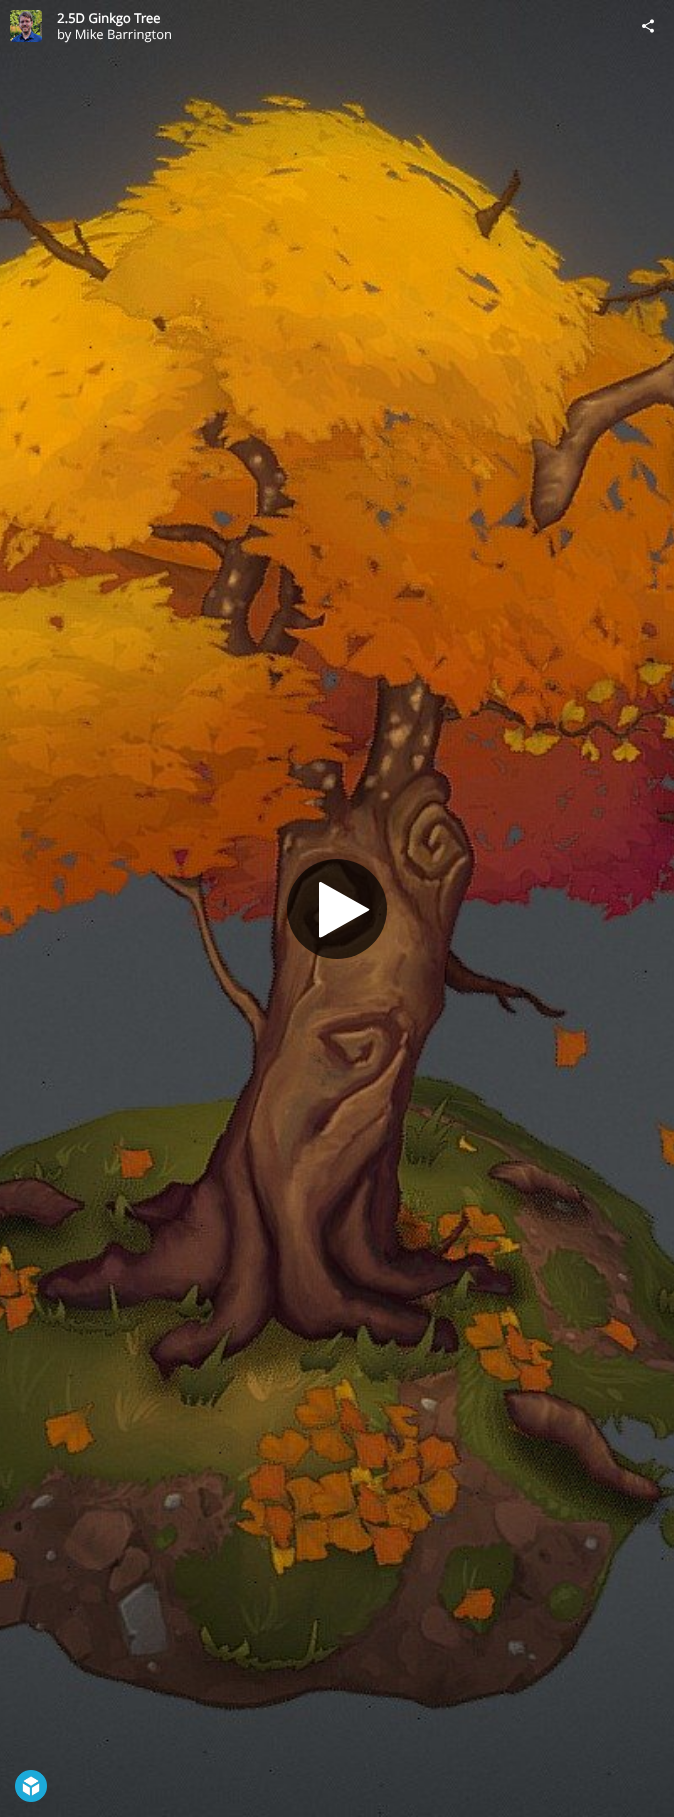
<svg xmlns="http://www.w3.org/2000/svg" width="674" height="1817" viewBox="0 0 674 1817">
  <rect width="100%" height="100%" fill="rgb(255,255,255)"/>
  <image x="0" y="0" width="674" height="1817" href="pic1.png"/>
  <circle cx="337" cy="909" r="50" fill="rgba(0,0,0,0.7)"/>
  <path d="M368 911L329 933C328 933 321 939 319 937V883C319 882 320 882 321 882L369 909C370 910 369 910 368 911Z" fill="rgb(255,255,255)"/>
  <image x="15" y="1770" width="32" height="32" href="pic2.png"/>
  <image x="10" y="10" width="32" height="32" href="pic3.png"/>
  <text x="57" y="23" font-family="Open Sans" font-size="13" font-weight="bold" fill="rgb(255,255,255)">2.5D Ginkgo Tree</text>
  <text x="57" y="39" font-family="Open Sans" font-size="13" fill="rgb(255,255,255)">by Mike Barrington</text>
  <image x="642" y="19" width="12" height="14" href="pic4.png"/>
</svg>
